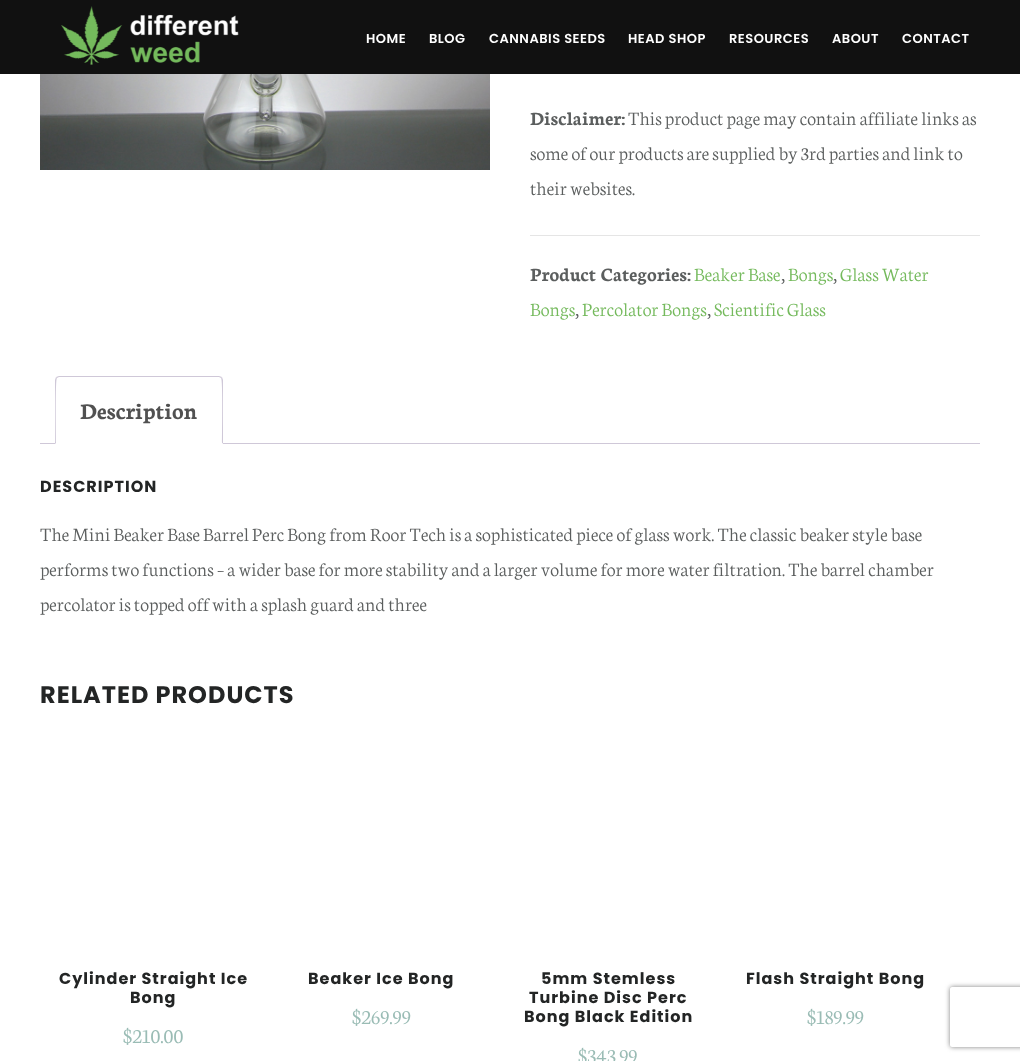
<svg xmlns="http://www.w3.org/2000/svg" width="1020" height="1061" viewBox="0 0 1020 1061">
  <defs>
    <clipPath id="clip1"><path d="M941 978H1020V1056H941ZM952 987H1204C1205 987 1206 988 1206 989V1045C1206 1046 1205 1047 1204 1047H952C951 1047 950 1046 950 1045V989C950 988 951 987 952 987Z" clip-rule="evenodd"/></clipPath>
  </defs>
  <rect width="100%" height="100%" fill="rgb(255,255,255)"/>
  <rect x="0" y="0" width="1020" height="74" fill="rgb(17,17,17)"/>
  <image x="61" y="6" width="178" height="59" href="pic1.png"/>
  <g font-family="Poppins" font-size="13" font-weight="600" letter-spacing="0.5" fill="rgb(255,255,255)">
    <text x="366" y="43">HOME</text>
    <text x="429" y="43">BLOG</text>
    <text x="489" y="43">CANNABIS SEEDS</text>
    <text x="628" y="43">HEAD SHOP</text>
    <text x="729" y="43">RESOURCES</text>
    <text x="832" y="43">ABOUT</text>
    <text x="902" y="43">CONTACT</text>
  </g>
  <image x="40" y="74" width="450" height="96" href="pic2.png"/>
  <text x="530" y="125" font-family="Neuton" font-size="20" font-weight="bold" fill="rgb(91,94,94)">Disclaimer:</text>
  <g font-family="Neuton" font-size="20" font-weight="300" fill="rgb(91,94,94)">
    <text x="628" y="125">This product page may contain affiliate links as</text>
    <text>
      <tspan x="530" y="160">some of our products are supplied by 3rd parties and link to</tspan>
      <tspan x="530" y="195">their websites.</tspan>
    </text>
  </g>
  <rect x="530" y="235" width="450" height="1" fill="rgb(229,229,229)"/>
  <text x="530" y="281" font-family="Neuton" font-size="20" font-weight="bold" fill="rgb(91,94,94)">Product Categories:</text>
  <text x="694" y="281" font-family="Neuton" font-size="20" font-weight="300" fill="rgb(117,186,93)">Beaker Base</text>
  <text x="781" y="281" font-family="Neuton" font-size="20" font-weight="300" fill="rgb(91,94,94)">,</text>
  <text x="788" y="281" font-family="Neuton" font-size="20" font-weight="300" fill="rgb(117,186,93)">Bongs</text>
  <text x="833" y="281" font-family="Neuton" font-size="20" font-weight="300" fill="rgb(91,94,94)">,</text>
  <g font-family="Neuton" font-size="20" font-weight="300" fill="rgb(117,186,93)">
    <text x="840" y="281">Glass Water</text>
    <text x="530" y="316">Bongs</text>
  </g>
  <text x="575" y="316" font-family="Neuton" font-size="20" font-weight="300" fill="rgb(91,94,94)">,</text>
  <text x="582" y="316" font-family="Neuton" font-size="20" font-weight="300" fill="rgb(117,186,93)">Percolator Bongs</text>
  <text x="707" y="316" font-family="Neuton" font-size="20" font-weight="300" fill="rgb(91,94,94)">,</text>
  <text x="714" y="316" font-family="Neuton" font-size="20" font-weight="300" fill="rgb(117,186,93)">Scientific Glass</text>
  <rect x="40" y="443" width="940" height="1" fill="rgb(207,200,216)"/>
  <path d="M59 376H219C221 376 223 378 223 380V444H55V380C55 378 57 376 59 376Z" fill="rgb(255,255,255)"/>
  <path d="M59 376L56 377L57 378L59 377H219L221 378L222 377L219 376Z" fill="rgb(207,200,216)"/>
  <path d="M223 444V380L222 377L221 378C223 379 222 436 222 443Z" fill="rgb(207,200,216)"/>
  <path d="M223 444L222 443H56L55 444Z" fill="rgb(255,255,255)"/>
  <path d="M55 444L56 443C56 436 55 379 57 378L56 377L55 380Z" fill="rgb(207,200,216)"/>
  <text x="80" y="419" font-family="Neuton" font-size="24" font-weight="bold" fill="rgb(81,81,81)">Description</text>
  <text x="40" y="492" font-family="Poppins" font-size="16" font-weight="bold" letter-spacing="1" fill="rgb(35,37,37)">DESCRIPTION</text>
  <g font-family="Neuton" font-size="20" font-weight="300" fill="rgb(91,94,94)">
    <text>
      <tspan x="40" y="541">The Mini Beaker Base Barrel Perc Bong from Roor Tech is a sophisticated piece of glass work. The classic beaker style base</tspan>
      <tspan x="40" y="576">performs two functions – a wider base for more stability and a larger volume for more water filtration. The barrel chamber</tspan>
      <tspan x="40" y="611">percolator is topped off with a splash guard and three</tspan>
    </text>
  </g>
  <text x="40" y="703" font-family="Poppins" font-size="24" font-weight="bold" letter-spacing="1" fill="rgb(35,37,37)">RELATED PRODUCTS</text>
  <g font-family="Poppins" font-size="16" font-weight="bold" letter-spacing="1" fill="rgb(35,37,37)">
    <text x="59" y="984">Cylinder Straight Ice</text>
    <text x="130" y="1003">Bong</text>
  </g>
  <text x="123" y="1043" font-family="Neuton" font-size="22" font-weight="300" fill="rgb(154,188,181)">$210.00</text>
  <text x="308" y="984" font-family="Poppins" font-size="16" font-weight="bold" letter-spacing="1" fill="rgb(35,37,37)">Beaker Ice Bong</text>
  <text x="352" y="1024" font-family="Neuton" font-size="22" font-weight="300" fill="rgb(154,188,181)">$269.99</text>
  <g font-family="Poppins" font-size="16" font-weight="bold" letter-spacing="1" fill="rgb(35,37,37)">
    <text x="541" y="984">5mm Stemless</text>
    <text x="529" y="1003">Turbine Disc Perc</text>
    <text x="524" y="1022">Bong Black Edition</text>
  </g>
  <text x="578" y="1063" font-family="Neuton" font-size="22" font-weight="300" fill="rgb(154,188,181)">$343.99</text>
  <text x="746" y="984" font-family="Poppins" font-size="16" font-weight="bold" letter-spacing="1" fill="rgb(35,37,37)">Flash Straight Bong</text>
  <text x="807" y="1024" font-family="Neuton" font-size="22" font-weight="300" fill="rgb(154,188,181)">$189.99</text>
  <g clip-path="url(#clip1)">
    <rect x="950" y="987" width="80" height="60" rx="2" fill="rgb(128,128,128)" filter="blur(2.5px)"/>
  </g>
</svg>
